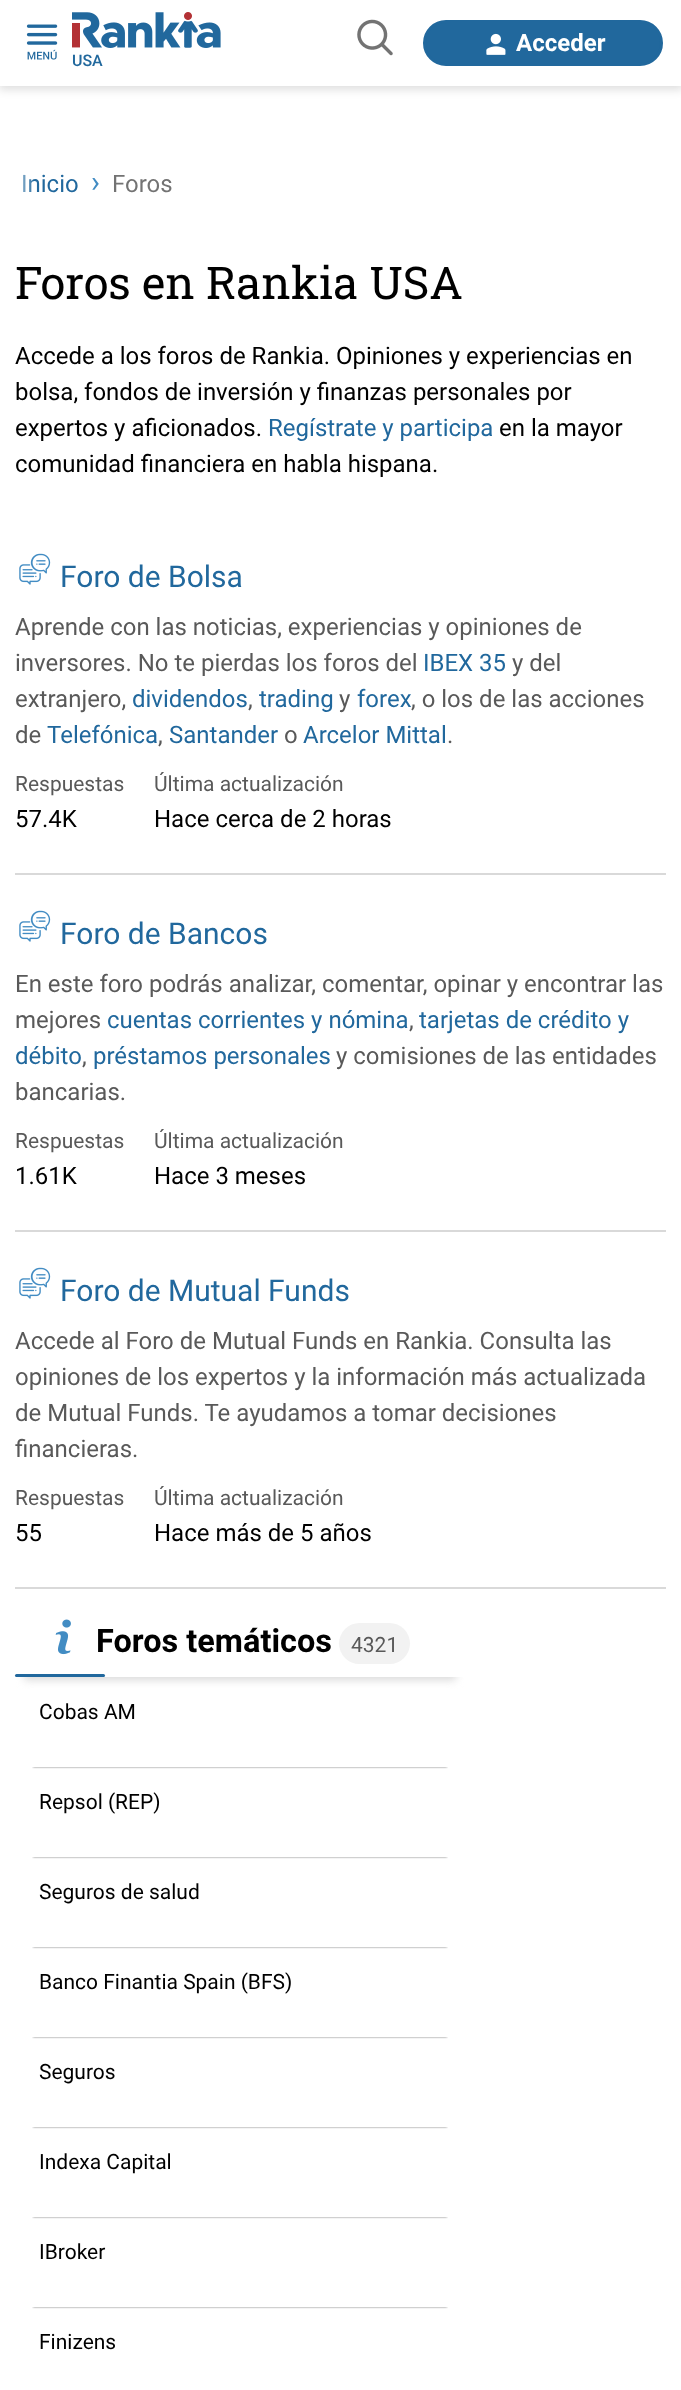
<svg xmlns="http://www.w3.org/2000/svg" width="681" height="2390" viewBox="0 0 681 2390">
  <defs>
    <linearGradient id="g1" gradientUnits="userSpaceOnUse" x1="3" y1="184" x2="33" y2="184"><stop offset="0" stop-color="rgb(255,255,255)"/><stop offset="1" stop-color="rgb(255,255,255)" stop-opacity="0.1"/></linearGradient>
    <clipPath id="clip1"><rect x="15" y="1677" width="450" height="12"/></clipPath>
    <clipPath id="clip2"><rect x="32" y="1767" width="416" height="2"/></clipPath>
    <clipPath id="clip3"><rect x="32" y="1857" width="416" height="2"/></clipPath>
    <clipPath id="clip4"><rect x="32" y="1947" width="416" height="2"/></clipPath>
    <clipPath id="clip5"><rect x="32" y="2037" width="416" height="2"/></clipPath>
    <clipPath id="clip6"><rect x="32" y="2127" width="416" height="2"/></clipPath>
    <clipPath id="clip7"><rect x="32" y="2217" width="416" height="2"/></clipPath>
    <clipPath id="clip8"><rect x="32" y="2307" width="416" height="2"/></clipPath>
  </defs>
  <rect width="100%" height="100%" fill="rgb(255,255,255)"/>
  <rect x="-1" y="2" width="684" height="88" fill="rgba(0,0,0,0.12)" filter="blur(4px)"/>
  <rect x="0" y="0" width="681" height="86" fill="rgb(255,255,255)"/>
  <image x="357" y="19" width="36" height="37" href="pic1.png"/>
  <rect x="424.5" y="21.5" width="237" height="43" rx="21.5" fill="rgb(33,104,157)" stroke="rgb(33,104,157)" stroke-width="3"/>
  <image x="486" y="33" width="20" height="22" href="pic2.png"/>
  <text x="516" y="51" font-family="Roboto" font-size="24" font-weight="bold" fill="rgb(255,255,255)">Acceder</text>
  <image x="26" y="24" width="32" height="36" href="pic3.png"/>
  <image x="72" y="12" width="149" height="36" href="pic4.png"/>
  <text x="72" y="66" font-family="Roboto" font-size="16" font-weight="500" fill="rgb(33,104,157)">USA</text>
  <text x="21" y="192" font-family="Roboto" font-size="24" fill="rgb(33,104,157)">Inicio</text>
  <text x="91" y="192" font-family="Roboto" font-size="30" fill="rgb(66,140,195)">›</text>
  <text x="112" y="192" font-family="Roboto" font-size="24" fill="rgb(115,115,115)">Foros</text>
  <rect x="23" y="174" width="10" height="18" fill="url(#g1)"/>
  <text x="15" y="299" font-family="Roboto Slab" font-size="45" fill="rgb(0,0,0)">Foros en Rankia USA</text>
  <g font-family="Roboto" font-size="24" fill="rgb(0,0,0)">
    <text>
      <tspan x="15" y="364">Accede a los foros de Rankia. Opiniones y experiencias en</tspan>
      <tspan x="15" y="400">bolsa, fondos de inversión y finanzas personales por</tspan>
      <tspan x="15" y="436">expertos y aficionados.</tspan>
    </text>
  </g>
  <text x="268" y="436" font-family="Roboto" font-size="24" fill="rgb(33,104,157)">Regístrate y participa</text>
  <g font-family="Roboto" font-size="24" fill="rgb(0,0,0)">
    <text x="499" y="436">en la mayor</text>
    <text x="15" y="472">comunidad financiera en habla hispana.</text>
  </g>
  <rect x="15" y="873" width="651" height="2" fill="rgb(217,217,217)"/>
  <image x="19" y="553" width="32" height="32" href="pic5.png"/>
  <text x="60" y="587" font-family="Roboto" font-size="30" fill="rgb(33,104,157)">Foro de Bolsa</text>
  <g font-family="Roboto" font-size="24" fill="rgb(89,89,89)">
    <text>
      <tspan x="15" y="635">Aprende con las noticias, experiencias y opiniones de</tspan>
      <tspan x="15" y="671">inversores. No te pierdas los foros del</tspan>
    </text>
  </g>
  <text x="423" y="671" font-family="Roboto" font-size="24" fill="rgb(33,104,157)">IBEX 35</text>
  <g font-family="Roboto" font-size="24" fill="rgb(89,89,89)">
    <text x="512" y="671">y del</text>
    <text x="15" y="707">extranjero,</text>
  </g>
  <text x="132" y="707" font-family="Roboto" font-size="24" fill="rgb(33,104,157)">dividendos</text>
  <text x="248" y="707" font-family="Roboto" font-size="24" fill="rgb(89,89,89)">,</text>
  <text x="259" y="707" font-family="Roboto" font-size="24" fill="rgb(33,104,157)">trading</text>
  <text x="339" y="707" font-family="Roboto" font-size="24" fill="rgb(89,89,89)">y</text>
  <text x="357" y="707" font-family="Roboto" font-size="24" fill="rgb(33,104,157)">forex</text>
  <g font-family="Roboto" font-size="24" fill="rgb(89,89,89)">
    <text x="411" y="707">, o los de las acciones</text>
    <text x="15" y="743">de</text>
  </g>
  <text x="47" y="743" font-family="Roboto" font-size="24" fill="rgb(33,104,157)">Telefónica</text>
  <text x="158" y="743" font-family="Roboto" font-size="24" fill="rgb(89,89,89)">,</text>
  <text x="169" y="743" font-family="Roboto" font-size="24" fill="rgb(33,104,157)">Santander</text>
  <text x="284" y="743" font-family="Roboto" font-size="24" fill="rgb(89,89,89)">o</text>
  <text x="303" y="743" font-family="Roboto" font-size="24" fill="rgb(33,104,157)">Arcelor Mittal</text>
  <text x="447" y="743" font-family="Roboto" font-size="24" fill="rgb(89,89,89)">.</text>
  <text x="15" y="791" font-family="Roboto" font-size="21" fill="rgb(89,89,89)">Respuestas</text>
  <text x="15" y="827" font-family="Roboto" font-size="24" fill="rgb(0,0,0)">57.4K</text>
  <text x="154" y="791" font-family="Roboto" font-size="21" fill="rgb(89,89,89)">Última actualización</text>
  <text x="154" y="827" font-family="Roboto" font-size="24" fill="rgb(0,0,0)">Hace cerca de 2 horas</text>
  <rect x="15" y="1230" width="651" height="2" fill="rgb(217,217,217)"/>
  <image x="19" y="910" width="32" height="32" href="pic5.png"/>
  <text x="60" y="944" font-family="Roboto" font-size="30" fill="rgb(33,104,157)">Foro de Bancos</text>
  <g font-family="Roboto" font-size="24" fill="rgb(89,89,89)">
    <text>
      <tspan x="15" y="992">En este foro podrás analizar, comentar, opinar y encontrar las</tspan>
      <tspan x="15" y="1028">mejores</tspan>
    </text>
  </g>
  <text x="107" y="1028" font-family="Roboto" font-size="24" fill="rgb(33,104,157)">cuentas corrientes y nómina</text>
  <text x="409" y="1028" font-family="Roboto" font-size="24" fill="rgb(89,89,89)">,</text>
  <g font-family="Roboto" font-size="24" fill="rgb(33,104,157)">
    <text x="419" y="1028">tarjetas de crédito y</text>
    <text x="15" y="1064">débito</text>
  </g>
  <text x="82" y="1064" font-family="Roboto" font-size="24" fill="rgb(89,89,89)">,</text>
  <text x="93" y="1064" font-family="Roboto" font-size="24" fill="rgb(33,104,157)">préstamos personales</text>
  <g font-family="Roboto" font-size="24" fill="rgb(89,89,89)">
    <text x="336" y="1064">y comisiones de las entidades</text>
    <text x="15" y="1100">bancarias.</text>
  </g>
  <text x="15" y="1148" font-family="Roboto" font-size="21" fill="rgb(89,89,89)">Respuestas</text>
  <text x="15" y="1184" font-family="Roboto" font-size="24" fill="rgb(0,0,0)">1.61K</text>
  <text x="154" y="1148" font-family="Roboto" font-size="21" fill="rgb(89,89,89)">Última actualización</text>
  <text x="154" y="1184" font-family="Roboto" font-size="24" fill="rgb(0,0,0)">Hace 3 meses</text>
  <rect x="15" y="1587" width="651" height="2" fill="rgb(217,217,217)"/>
  <image x="19" y="1267" width="32" height="32" href="pic5.png"/>
  <text x="60" y="1301" font-family="Roboto" font-size="30" fill="rgb(33,104,157)">Foro de Mutual Funds</text>
  <g font-family="Roboto" font-size="24" fill="rgb(89,89,89)">
    <text>
      <tspan x="15" y="1349">Accede al Foro de Mutual Funds en Rankia. Consulta las</tspan>
      <tspan x="15" y="1385">opiniones de los expertos y la información más actualizada</tspan>
      <tspan x="15" y="1421">de Mutual Funds. Te ayudamos a tomar decisiones</tspan>
      <tspan x="15" y="1457">financieras.</tspan>
    </text>
  </g>
  <text x="15" y="1505" font-family="Roboto" font-size="21" fill="rgb(89,89,89)">Respuestas</text>
  <text x="15" y="1541" font-family="Roboto" font-size="24" fill="rgb(0,0,0)">55</text>
  <text x="154" y="1505" font-family="Roboto" font-size="21" fill="rgb(89,89,89)">Última actualización</text>
  <text x="154" y="1541" font-family="Roboto" font-size="24" fill="rgb(0,0,0)">Hace más de 5 años</text>
  <g clip-path="url(#clip1)">
    <rect x="24" y="1610" width="432" height="70" fill="rgb(217,217,217)" filter="blur(4.5px)"/>
  </g>
  <image x="55" y="1619" width="16" height="36" href="pic6.png"/>
  <text x="96" y="1652" font-family="Roboto" font-size="32.5" font-weight="bold" fill="rgb(0,0,0)">Foros temáticos</text>
  <rect x="339" y="1623" width="71" height="41" rx="20.5" fill="rgb(242,242,242)"/>
  <text x="351" y="1652" font-family="Roboto" font-size="21" fill="rgb(89,89,89)">4321</text>
  <rect x="15" y="1674" width="90" height="3" rx="1.5" fill="rgb(33,104,157)"/>
  <g clip-path="url(#clip2)">
    <rect x="33" y="1713" width="414" height="54" fill="rgb(115,115,115)" filter="blur(1px)"/>
  </g>
  <text x="39" y="1719" font-family="Roboto" font-size="21" fill="rgb(0,0,0)">Cobas AM</text>
  <g clip-path="url(#clip3)">
    <rect x="33" y="1803" width="414" height="54" fill="rgb(115,115,115)" filter="blur(1px)"/>
  </g>
  <text x="39" y="1809" font-family="Roboto" font-size="21" fill="rgb(0,0,0)">Repsol (REP)</text>
  <g clip-path="url(#clip4)">
    <rect x="33" y="1893" width="414" height="54" fill="rgb(115,115,115)" filter="blur(1px)"/>
  </g>
  <text x="39" y="1899" font-family="Roboto" font-size="21" fill="rgb(0,0,0)">Seguros de salud</text>
  <g clip-path="url(#clip5)">
    <rect x="33" y="1983" width="414" height="54" fill="rgb(115,115,115)" filter="blur(1px)"/>
  </g>
  <text x="39" y="1989" font-family="Roboto" font-size="21" fill="rgb(0,0,0)">Banco Finantia Spain (BFS)</text>
  <g clip-path="url(#clip6)">
    <rect x="33" y="2073" width="414" height="54" fill="rgb(115,115,115)" filter="blur(1px)"/>
  </g>
  <text x="39" y="2079" font-family="Roboto" font-size="21" fill="rgb(0,0,0)">Seguros</text>
  <g clip-path="url(#clip7)">
    <rect x="33" y="2163" width="414" height="54" fill="rgb(115,115,115)" filter="blur(1px)"/>
  </g>
  <text x="39" y="2169" font-family="Roboto" font-size="21" fill="rgb(0,0,0)">Indexa Capital</text>
  <g clip-path="url(#clip8)">
    <rect x="33" y="2253" width="414" height="54" fill="rgb(115,115,115)" filter="blur(1px)"/>
  </g>
  <g font-family="Roboto" font-size="21" fill="rgb(0,0,0)">
    <text x="39" y="2259">IBroker</text>
    <text x="39" y="2349">Finizens</text>
  </g>
</svg>
